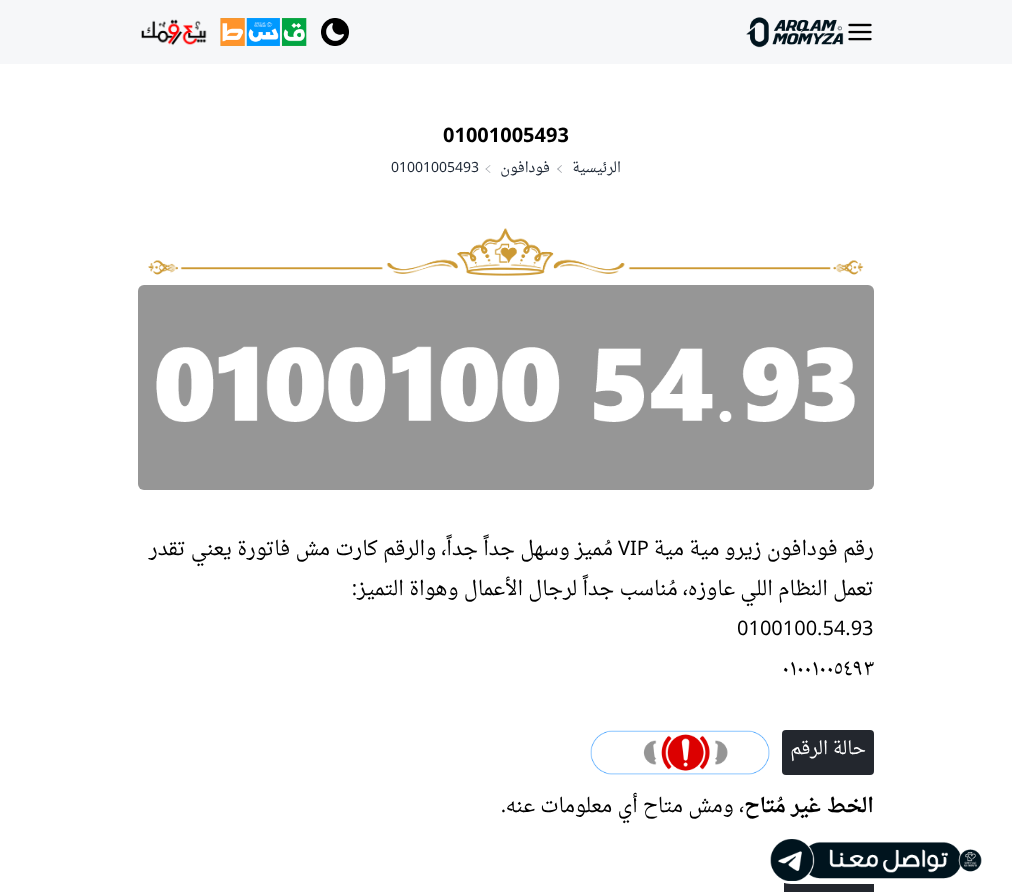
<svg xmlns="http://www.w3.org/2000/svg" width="1012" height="892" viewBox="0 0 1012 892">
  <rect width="100%" height="100%" fill="rgb(255,255,255)"/>
  <rect x="0" y="0" width="1012" height="64" fill="rgb(246,247,249)"/>
  <image x="848" y="23" width="24" height="18" href="pic1.png"/>
  <image x="746" y="17" width="98" height="31" href="pic2.png"/>
  <image x="321" y="18" width="28" height="28" href="pic3.png"/>
  <image x="220" y="18" width="87" height="28" href="pic4.png"/>
  <image x="141" y="19" width="66" height="27" href="pic5.png"/>
  <text x="443" y="142" font-family="Noto Sans" font-size="20" font-weight="bold" fill="rgb(0,0,0)">01001005493</text>
  <text x="621" y="172" font-family="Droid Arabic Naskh" font-size="14" direction="rtl" fill="rgb(31,41,55)">الرئيسية</text>
  <path d="M561.5 173L557 169L558 168.5L562 172.5Z" fill="rgb(165,169,175)"/>
  <path d="M558 169.5L557 169L561.5 165L562 165.5Z" fill="rgb(165,169,175)"/>
  <text x="550" y="172" font-family="Droid Arabic Naskh" font-size="14" direction="rtl" fill="rgb(31,41,55)">فودافون</text>
  <path d="M490 173L485.5 169L486 168.5L490.5 172.5Z" fill="rgb(165,169,175)"/>
  <path d="M486 169.5L485.5 169L490 165L490.5 165.5Z" fill="rgb(165,169,175)"/>
  <text x="391" y="172" font-family="Noto Sans" font-size="14" fill="rgb(31,41,55)">01001005493</text>
  <image x="148" y="228" width="716" height="48" href="pic6.png"/>
  <rect x="138" y="285" width="736" height="205" rx="6" fill="rgb(150,150,150)"/>
  <image x="156" y="346" width="699" height="76" href="pic7.png"/>
  <text x="874" y="555" font-family="Droid Arabic Naskh" font-size="20" direction="rtl" fill="rgb(0,0,0)">رقم فودافون زيرو مية مية</text>
  <text x="618" y="555" font-family="Noto Sans" font-size="20" fill="rgb(0,0,0)">VIP</text>
  <g font-family="Droid Arabic Naskh" font-size="20" direction="rtl" fill="rgb(0,0,0)">
    <text x="613" y="555">مُميز وسهل جداً جداً، والرقم كارت مش فاتورة يعني تقدر</text>
    <text x="874" y="595">تعمل النظام اللي عاوزه، مُناسب جداً لرجال الأعمال وهواة التميز</text>
  </g>
  <text x="357" y="595" font-family="Noto Sans" font-size="20" direction="rtl" fill="rgb(0,0,0)">:</text>
  <text x="737" y="635" font-family="Noto Sans" font-size="20" fill="rgb(0,0,0)">0100100.54.93</text>
  <text x="782" y="675" font-family="Droid Arabic Naskh" font-size="20" fill="rgb(0,0,0)">٠١٠٠١٠٠٥٤٩٣</text>
  <rect x="782" y="730" width="92" height="45" rx="4" fill="rgb(35,39,46)"/>
  <text x="866" y="754" font-family="Droid Arabic Naskh" font-size="18" direction="rtl" fill="rgb(255,255,255)">حالة الرقم</text>
  <image x="590" y="730" width="180" height="45" href="pic8.png"/>
  <text x="874" y="812" font-family="Droid Arabic Naskh" font-size="20" font-weight="bold" direction="rtl" fill="rgb(0,0,0)">الخط غير مُتاح</text>
  <text x="744" y="812" font-family="Droid Arabic Naskh" font-size="20" direction="rtl" fill="rgb(0,0,0)">، ومش متاح أي معلومات عنه</text>
  <text x="506" y="812" font-family="Noto Sans" font-size="20" direction="rtl" fill="rgb(0,0,0)">.</text>
  <rect x="784" y="883" width="90" height="9" fill="rgb(35,39,46)"/>
  <rect x="767" y="836" width="218" height="48" rx="24" fill="rgb(255,255,255)"/>
  <image x="770" y="839" width="212" height="42" href="pic9.png"/>
</svg>
